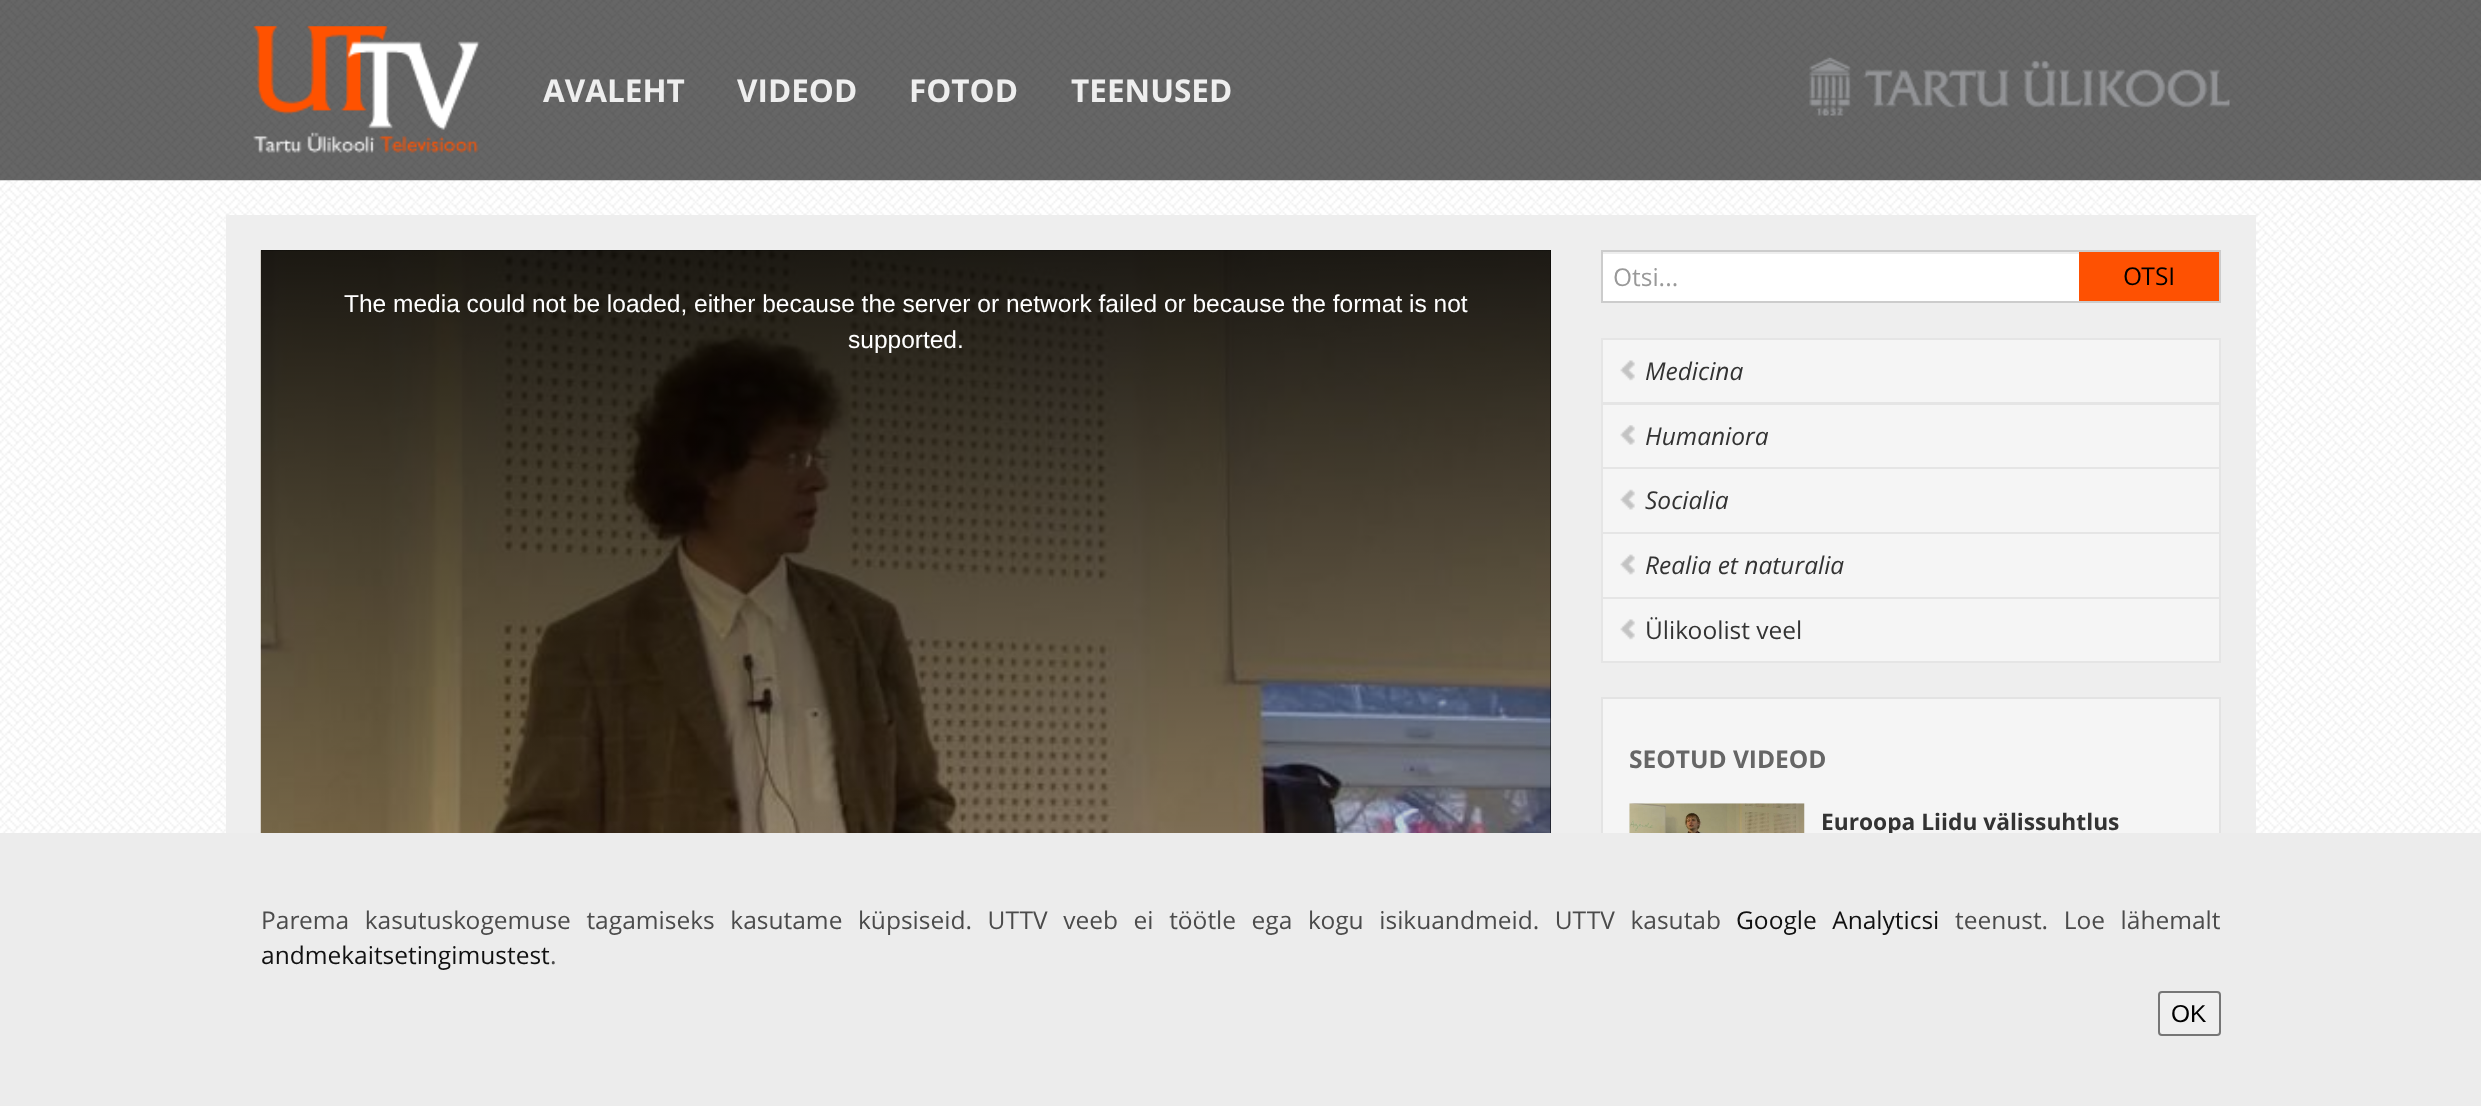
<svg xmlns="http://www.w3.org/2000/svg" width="2481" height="1106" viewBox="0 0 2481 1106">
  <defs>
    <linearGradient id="g1" gradientUnits="userSpaceOnUse" x1="906" y1="250" x2="906" y2="977"><stop offset="0" stop-color="rgb(0,0,0)" stop-opacity="0.8"/><stop offset="1" stop-color="rgb(0,0,0)" stop-opacity="0"/></linearGradient>
  </defs>
  <rect width="100%" height="100%" fill="rgb(255,255,255)"/>
  <image x="0" y="0" width="2481" height="181" href="pic1.png"/>
  <image x="253" y="26" width="227" height="127" href="pic2.png"/>
  <g font-family="Open Sans" font-size="31.5" font-weight="bold" fill="rgb(238,238,238)">
    <text x="543" y="102">AVALEHT</text>
    <text x="737" y="102">VIDEOD</text>
    <text x="909" y="102">FOTOD</text>
    <text x="1071" y="102">TEENUSED</text>
  </g>
  <image x="1809" y="57" width="421" height="59" href="pic3.png"/>
  <image x="0" y="180" width="2481" height="653" href="pic4.png"/>
  <rect x="226" y="215" width="2030" height="618" fill="rgb(238,238,238)"/>
  <rect x="261" y="250" width="1290" height="583" fill="rgb(0,0,0)"/>
  <image x="260" y="250" width="1291" height="583" href="pic5.png"/>
  <rect x="261" y="250" width="1290" height="583" fill="url(#g1)"/>
  <g font-family="Liberation Sans" font-size="24.5" fill="rgb(255,255,255)">
    <text x="344" y="312">The media could not be loaded, either because the server or network failed or because the format is not</text>
    <text x="848" y="348">supported.</text>
  </g>
  <rect x="1603" y="254" width="476" height="47" fill="rgb(255,255,255)"/>
  <rect x="1602" y="251" width="618" height="51" fill="none" stroke="rgb(204,204,204)" stroke-width="2"/>
  <text x="1613" y="286" font-family="Open Sans" font-size="24.5" fill="rgb(153,153,153)">Otsi...</text>
  <rect x="2079" y="252" width="140" height="49" fill="rgb(254,81,2)"/>
  <text x="2123" y="285" font-family="Open Sans" font-size="24.5" fill="rgb(0,0,0)">OTSI</text>
  <rect x="1603" y="340" width="616" height="321" fill="rgb(245,245,245)"/>
  <rect x="1602" y="339" width="618" height="64" fill="none" stroke="rgb(229,229,229)" stroke-width="2"/>
  <image x="1620" y="360" width="15" height="21" href="pic6.png"/>
  <text x="1645" y="380" font-family="Open Sans" font-size="24.5" font-style="italic" fill="rgb(51,51,51)">Medicina</text>
  <rect x="1602" y="404" width="618" height="64" fill="none" stroke="rgb(229,229,229)" stroke-width="2"/>
  <image x="1620" y="425" width="15" height="20" href="pic7.png"/>
  <text x="1645" y="445" font-family="Open Sans" font-size="24.5" font-style="italic" fill="rgb(51,51,51)">Humaniora</text>
  <rect x="1602" y="468" width="618" height="65" fill="none" stroke="rgb(229,229,229)" stroke-width="2"/>
  <image x="1620" y="489" width="15" height="21" href="pic8.png"/>
  <text x="1645" y="509" font-family="Open Sans" font-size="24.5" font-style="italic" fill="rgb(51,51,51)">Socialia</text>
  <rect x="1602" y="533" width="618" height="65" fill="none" stroke="rgb(229,229,229)" stroke-width="2"/>
  <image x="1620" y="554" width="15" height="21" href="pic9.png"/>
  <text x="1645" y="574" font-family="Open Sans" font-size="24.5" font-style="italic" fill="rgb(51,51,51)">Realia et naturalia</text>
  <rect x="1602" y="598" width="618" height="64" fill="none" stroke="rgb(229,229,229)" stroke-width="2"/>
  <image x="1620" y="619" width="15" height="21" href="pic6.png"/>
  <text x="1645" y="639" font-family="Open Sans" font-size="24.5" fill="rgb(51,51,51)">Ülikoolist veel</text>
  <rect x="1603" y="699" width="616" height="134" fill="rgb(245,245,245)"/>
  <rect x="1602" y="698" width="618" height="290" fill="none" stroke="rgb(227,227,227)" stroke-width="2"/>
  <text x="1629" y="768" font-family="Open Sans" font-size="24.5" font-weight="bold" fill="rgb(102,102,102)">SEOTUD VIDEOD</text>
  <image x="1629" y="803" width="176" height="30" href="pic10.png"/>
  <text x="1821" y="830" font-family="Open Sans" font-size="22.75" font-weight="bold" fill="rgb(51,51,51)">Euroopa Liidu välissuhtlus</text>
  <rect x="0" y="833" width="2481" height="273" fill="rgb(236,236,236)"/>
  <text x="261" y="929" word-spacing="9.25" font-family="Open Sans" font-size="24.5" fill="rgb(75,75,75)">Parema kasutuskogemuse tagamiseks kasutame küpsiseid. UTTV veeb ei töötle ega kogu isikuandmeid. UTTV kasutab</text>
  <text x="1736" y="929" word-spacing="9" font-family="Open Sans" font-size="24.5" fill="rgb(17,17,17)">Google Analyticsi</text>
  <text x="1955" y="929" word-spacing="9.25" font-family="Open Sans" font-size="24.5" fill="rgb(75,75,75)">teenust. Loe lähemalt</text>
  <text x="261" y="964" font-family="Open Sans" font-size="24.5" fill="rgb(17,17,17)">andmekaitsetingimustest</text>
  <text x="550" y="964" font-family="Open Sans" font-size="24.5" fill="rgb(75,75,75)">.</text>
  <rect x="2159" y="992" width="61" height="43" rx="3" fill="rgb(239,239,239)" stroke="rgb(118,118,118)" stroke-width="2"/>
  <text x="2171" y="1022" font-family="Liberation Sans" font-size="24.5" fill="rgb(0,0,0)">OK</text>
</svg>
